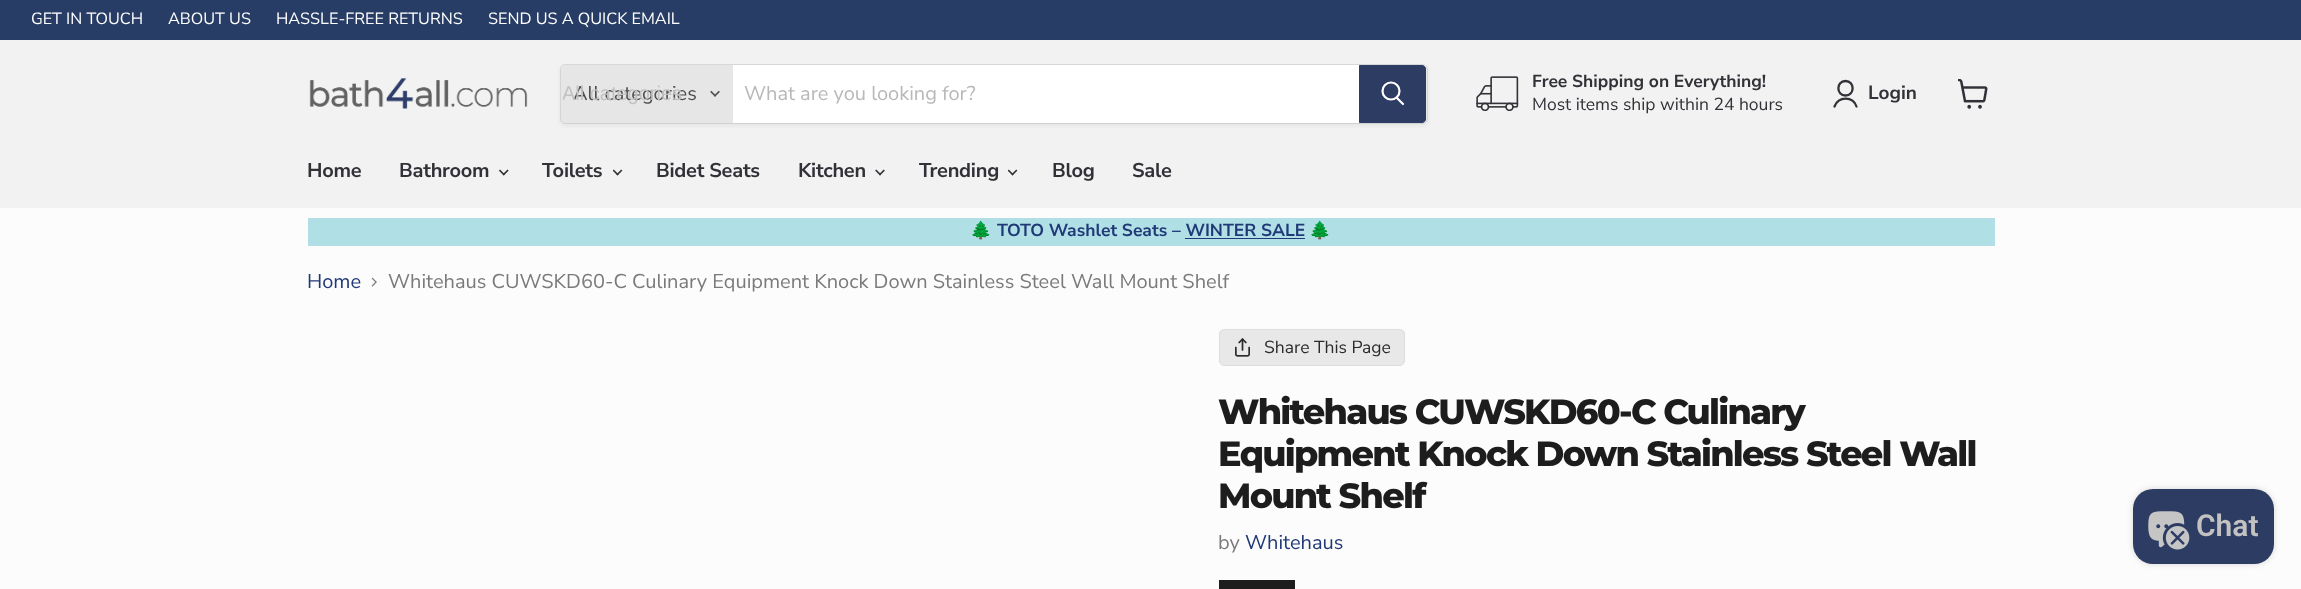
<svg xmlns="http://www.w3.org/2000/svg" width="2301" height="589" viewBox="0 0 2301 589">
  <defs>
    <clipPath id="clip1"><rect x="563" y="83" width="168" height="22"/></clipPath>
  </defs>
  <rect width="100%" height="100%" fill="rgb(252,252,252)"/>
  <rect x="0" y="0" width="2301" height="40" fill="rgb(40,61,101)"/>
  <g font-family="Nunito Sans" font-size="16.25" fill="rgb(255,255,255)">
    <text x="31" y="24">GET IN TOUCH</text>
    <text x="168" y="24">ABOUT US</text>
    <text x="276" y="24">HASSLE-FREE RETURNS</text>
    <text x="488" y="24">SEND US A QUICK EMAIL</text>
  </g>
  <rect x="0" y="40" width="2301" height="168" fill="rgb(242,242,242)"/>
  <image x="309" y="78" width="219" height="31" href="pic1.png"/>
  <rect x="560" y="66" width="868" height="60" rx="5" fill="rgba(126,126,126,0.11)" filter="blur(2px)"/>
  <rect x="560.5" y="64.5" width="867" height="59" rx="4.5" fill="none" stroke="rgba(126,126,126,0.2)"/>
  <path d="M565 65H733V123H565C563 123 561 121 561 119V69C561 67 563 65 565 65Z" fill="rgb(230,230,230)"/>
  <text x="573" y="100" font-family="Nunito Sans" font-size="20" fill="rgb(77,77,77)">All categories</text>
  <g clip-path="url(#clip1)">
    <text x="562" y="100" font-family="Liberation Sans" font-size="20" fill="rgb(194,194,194)">All categories</text>
  </g>
  <image x="710" y="90" width="10" height="7" href="pic2.png"/>
  <rect x="733" y="65" width="626" height="58" fill="rgb(255,255,255)"/>
  <text x="744" y="100" font-family="Nunito Sans" font-size="20" fill="rgb(184,184,184)">What are you looking for?</text>
  <path d="M1359.5 65.5H1422C1424 65.5 1425.5 67 1425.5 69V119C1425.5 121 1424 122.5 1422 122.5H1359.5Z" fill="rgb(45,60,98)" stroke="rgb(45,60,98)"/>
  <path d="M1403 104L1397 98" fill="none" stroke="rgb(255,255,255)" stroke-width="2.2" stroke-linecap="round"/>
  <circle cx="1391" cy="91" r="8.5" fill="none" stroke="rgb(255,255,255)" stroke-width="2.2"/>
  <image x="1476" y="76" width="43" height="35" href="pic3.png"/>
  <text x="1532" y="87" font-family="Nunito Sans" font-size="17.5" font-weight="bold" fill="rgb(50,49,55)">Free Shipping on Everything!</text>
  <text x="1532" y="110" font-family="Nunito Sans" font-size="17.5" fill="rgb(50,49,55)">Most items ship within 24 hours</text>
  <path d="M1845.5 95.5C1855 95.5 1855 81 1845.5 81C1836 81 1836 95.5 1845.5 95.5ZM1856.5 106.5C1853 96 1838.5 96 1834.5 106.5" fill="none" stroke="rgb(50,49,55)" stroke-width="2.3" stroke-linecap="round" stroke-linejoin="round"/>
  <text x="1868" y="99" font-family="Nunito Sans" font-size="19" font-weight="bold" fill="rgb(50,49,55)">Login</text>
  <image x="1958" y="79" width="30" height="30" href="pic4.png"/>
  <g font-family="Nunito Sans" font-size="20" font-weight="bold" letter-spacing="-0.25" fill="rgb(50,49,55)">
    <text x="307" y="177">Home</text>
    <text x="399" y="177">Bathroom</text>
  </g>
  <image x="499" y="169" width="10" height="7" href="pic5.png"/>
  <text x="542" y="177" font-family="Nunito Sans" font-size="20" font-weight="bold" letter-spacing="-0.25" fill="rgb(50,49,55)">Toilets</text>
  <image x="613" y="169" width="10" height="7" href="pic6.png"/>
  <g font-family="Nunito Sans" font-size="20" font-weight="bold" letter-spacing="-0.25" fill="rgb(50,49,55)">
    <text x="656" y="177">Bidet Seats</text>
    <text x="798" y="177">Kitchen</text>
  </g>
  <image x="875" y="169" width="10" height="7" href="pic7.png"/>
  <text x="919" y="177" font-family="Nunito Sans" font-size="20" font-weight="bold" letter-spacing="-0.25" fill="rgb(50,49,55)">Trending</text>
  <image x="1008" y="169" width="10" height="7" href="pic6.png"/>
  <g font-family="Nunito Sans" font-size="20" font-weight="bold" letter-spacing="-0.25" fill="rgb(50,49,55)">
    <text x="1052" y="177">Blog</text>
    <text x="1132" y="177">Sale</text>
  </g>
  <rect x="308" y="218" width="1687" height="28" fill="rgb(176,224,230)"/>
  <text x="970" y="236" font-family="Noto Color Emoji" font-size="17.5" font-weight="bold" fill="rgb(32,57,118)">🌲</text>
  <text x="997" y="236" font-family="Nunito Sans" font-size="17.5" font-weight="bold" fill="rgb(32,57,118)">TOTO Washlet Seats – WINTER SALE</text>
  <rect x="1185" y="238" width="120" height="1" fill="rgb(32,57,118)"/>
  <text x="1309" y="236" font-family="Noto Color Emoji" font-size="17.5" font-weight="bold" fill="rgb(32,57,118)">🌲</text>
  <text x="307" y="288" font-family="Nunito Sans" font-size="20" fill="rgb(32,57,118)">Home</text>
  <image x="371" y="277" width="6" height="10" href="pic8.png"/>
  <text x="388" y="288" font-family="Nunito Sans" font-size="20" fill="rgb(122,122,122)">Whitehaus CUWSKD60-C Culinary Equipment Knock Down Stainless Steel Wall Mount Shelf</text>
  <rect x="1219.5" y="329.5" width="185" height="36" rx="4.5" fill="rgb(232,232,232)" stroke="rgb(221,221,221)"/>
  <image x="1235" y="338" width="15" height="19" href="pic9.png"/>
  <text x="1264" y="353" font-family="Nunito Sans" font-size="17.5" fill="rgb(43,43,43)">Share This Page</text>
  <g font-family="Montserrat" font-size="35" font-weight="800" letter-spacing="-1.75" fill="rgb(29,29,29)">
    <text>
      <tspan x="1218" y="424">Whitehaus CUWSKD60-C Culinary</tspan>
      <tspan x="1218" y="466">Equipment Knock Down Stainless Steel Wall</tspan>
      <tspan x="1218" y="508">Mount Shelf</tspan>
    </text>
  </g>
  <text x="1218" y="549" font-family="Nunito Sans" font-size="20" fill="rgb(122,122,122)">by</text>
  <text x="1245" y="549" font-family="Nunito Sans" font-size="20" fill="rgb(32,57,118)">Whitehaus</text>
  <rect x="1219" y="580" width="76" height="9" fill="rgb(29,29,29)"/>
  <rect x="2133" y="489" width="141" height="75" rx="20" fill="rgba(0,0,0,0.15)" filter="blur(3px)"/>
  <rect x="2133" y="489" width="141" height="75" rx="20" fill="rgb(45,60,98)"/>
  <image x="2148" y="511" width="42" height="39" href="pic10.png"/>
  <text x="2196" y="536" font-family="Roboto" font-size="30" font-weight="600" fill="rgb(194,194,194)">Chat</text>
</svg>
